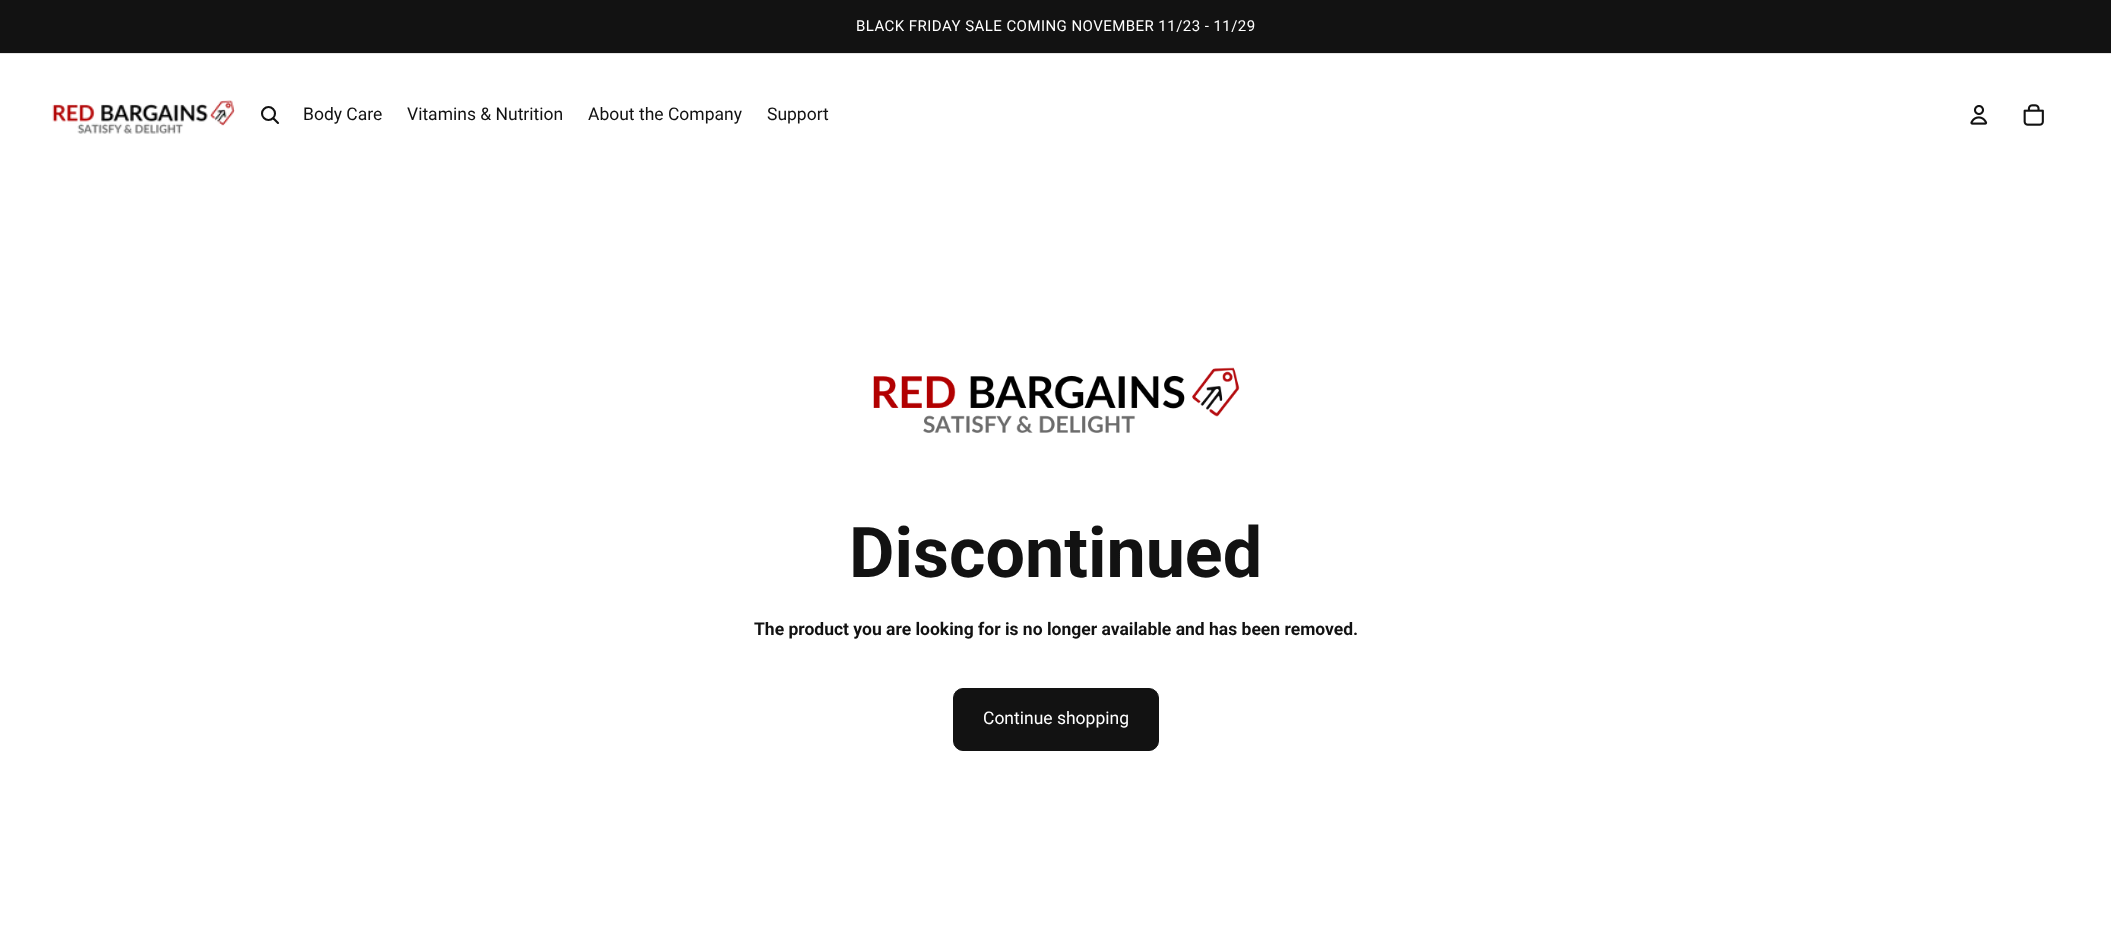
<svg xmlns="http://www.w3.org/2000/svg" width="2111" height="941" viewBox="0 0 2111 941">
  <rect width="100%" height="100%" fill="rgb(255,255,255)"/>
  <rect x="0" y="0" width="2111" height="53" fill="rgb(18,18,18)"/>
  <rect x="0" y="53" width="2111" height="1" fill="rgb(230,230,230)"/>
  <text x="856" y="31" font-family="Roboto" font-size="15" letter-spacing="0.45" fill="rgb(255,255,255)">BLACK FRIDAY SALE COMING NOVEMBER 11/23 - 11/29</text>
  <image x="52" y="100" width="183" height="34" href="pic1.png"/>
  <circle cx="268.5" cy="113.5" r="6.5" fill="none" stroke="rgb(18,18,18)" stroke-width="2.1"/>
  <path d="M273.5 118.5L278 123" fill="none" stroke="rgb(18,18,18)" stroke-width="2.1" stroke-linecap="round" stroke-linejoin="round"/>
  <g font-family="Roboto" font-size="17.5" fill="rgb(18,18,18)">
    <text x="303" y="120">Body Care</text>
    <text x="407" y="120">Vitamins &amp; Nutrition</text>
    <text x="588" y="120">About the Company</text>
    <text x="767" y="120">Support</text>
  </g>
  <image x="1970" y="105" width="18" height="20" href="pic2.png"/>
  <image x="2023" y="104" width="21" height="22" href="pic3.png"/>
  <image x="873" y="367" width="367" height="66" href="pic4.png"/>
  <text x="849" y="577" font-family="Roboto" font-size="70" font-weight="bold" fill="rgb(18,18,18)">Discontinued</text>
  <text x="754" y="635" font-family="Roboto" font-size="17.5" font-weight="bold" fill="rgb(18,18,18)">The product you are looking for is no longer available and has been removed.</text>
  <rect x="953.5" y="688.5" width="205" height="62" rx="9.5" fill="rgb(18,18,18)" stroke="rgb(18,18,18)"/>
  <text x="983" y="724" font-family="Roboto" font-size="17.5" fill="rgb(255,255,255)">Continue shopping</text>
</svg>
